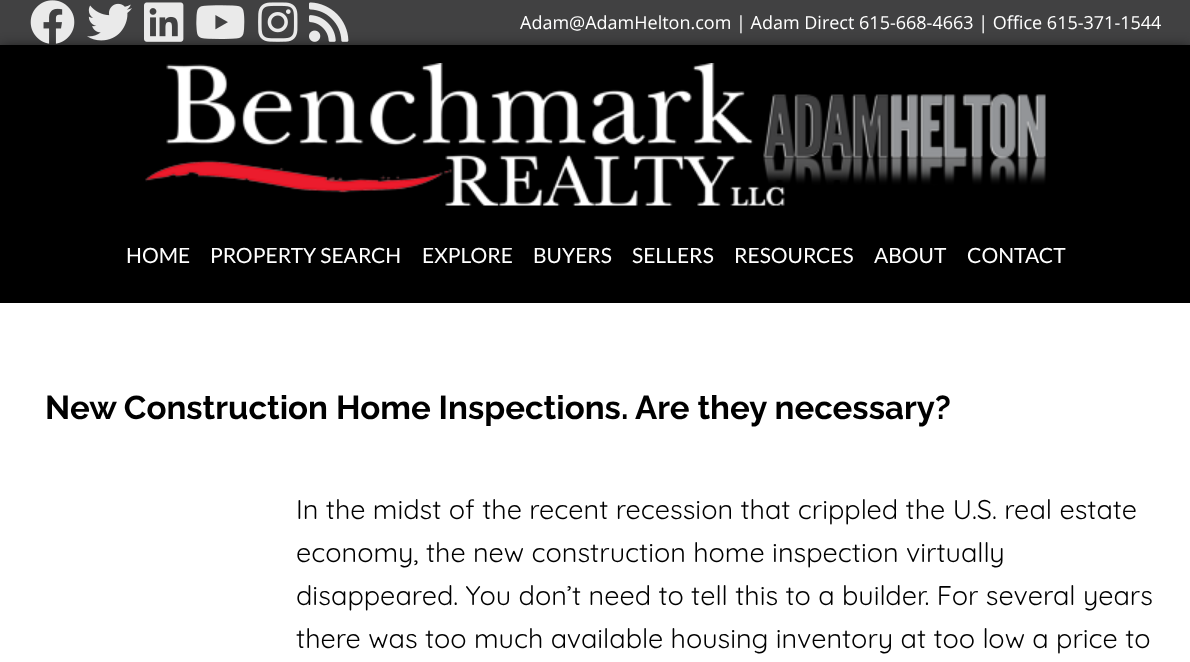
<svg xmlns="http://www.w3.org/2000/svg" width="1190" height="662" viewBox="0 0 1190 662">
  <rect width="100%" height="100%" fill="rgb(65,65,66)"/>
  <rect x="0" y="50" width="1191" height="258" fill="rgb(0,0,0)" filter="blur(7.5px)"/>
  <image x="30" y="0" width="45" height="44" href="pic1.png"/>
  <image x="87" y="3" width="45" height="38" href="pic2.png"/>
  <image x="144" y="2" width="40" height="40" href="pic3.png"/>
  <image x="196" y="5" width="49" height="34" href="pic4.png"/>
  <image x="258" y="2" width="40" height="40" href="pic5.png"/>
  <image x="309" y="2" width="40" height="40" href="pic6.png"/>
  <text x="520" y="29" font-family="Open Sans" font-size="18" fill="rgb(255,255,255)">Adam@AdamHelton.com | Adam Direct 615-668-4663 | Office 615-371-1544</text>
  <rect x="0" y="45" width="1190" height="258" fill="rgb(0,0,0)"/>
  <image x="145" y="63" width="901" height="143" href="pic7.png"/>
  <g font-family="Lato" font-size="21" fill="rgb(255,255,255)">
    <text x="126" y="263">HOME</text>
    <text x="210" y="263">PROPERTY SEARCH</text>
    <text x="422" y="263">EXPLORE</text>
    <text x="533" y="263">BUYERS</text>
    <text x="632" y="263">SELLERS</text>
    <text x="734" y="263">RESOURCES</text>
    <text x="874" y="263">ABOUT</text>
    <text x="967" y="263">CONTACT</text>
  </g>
  <rect x="0" y="303" width="1190" height="359" fill="rgb(255,255,255)"/>
  <g font-family="Raleway" font-size="33" font-weight="bold" fill="rgb(0,0,0)">
    <text x="45" y="419">New Construction Home Inspections.</text>
    <text x="635" y="419">Are they necessary?</text>
  </g>
  <g font-family="Quicksand" font-size="27" fill="rgb(0,0,0)">
    <text>
      <tspan x="296" y="519">In the midst of the recent recession that crippled the U.S. real estate</tspan>
      <tspan x="296" y="562">economy, the new construction home inspection virtually</tspan>
      <tspan x="296" y="605">disappeared. You don’t need to tell this to a builder. For several years</tspan>
      <tspan x="296" y="648">there was too much available housing inventory at too low a price to</tspan>
    </text>
  </g>
</svg>
